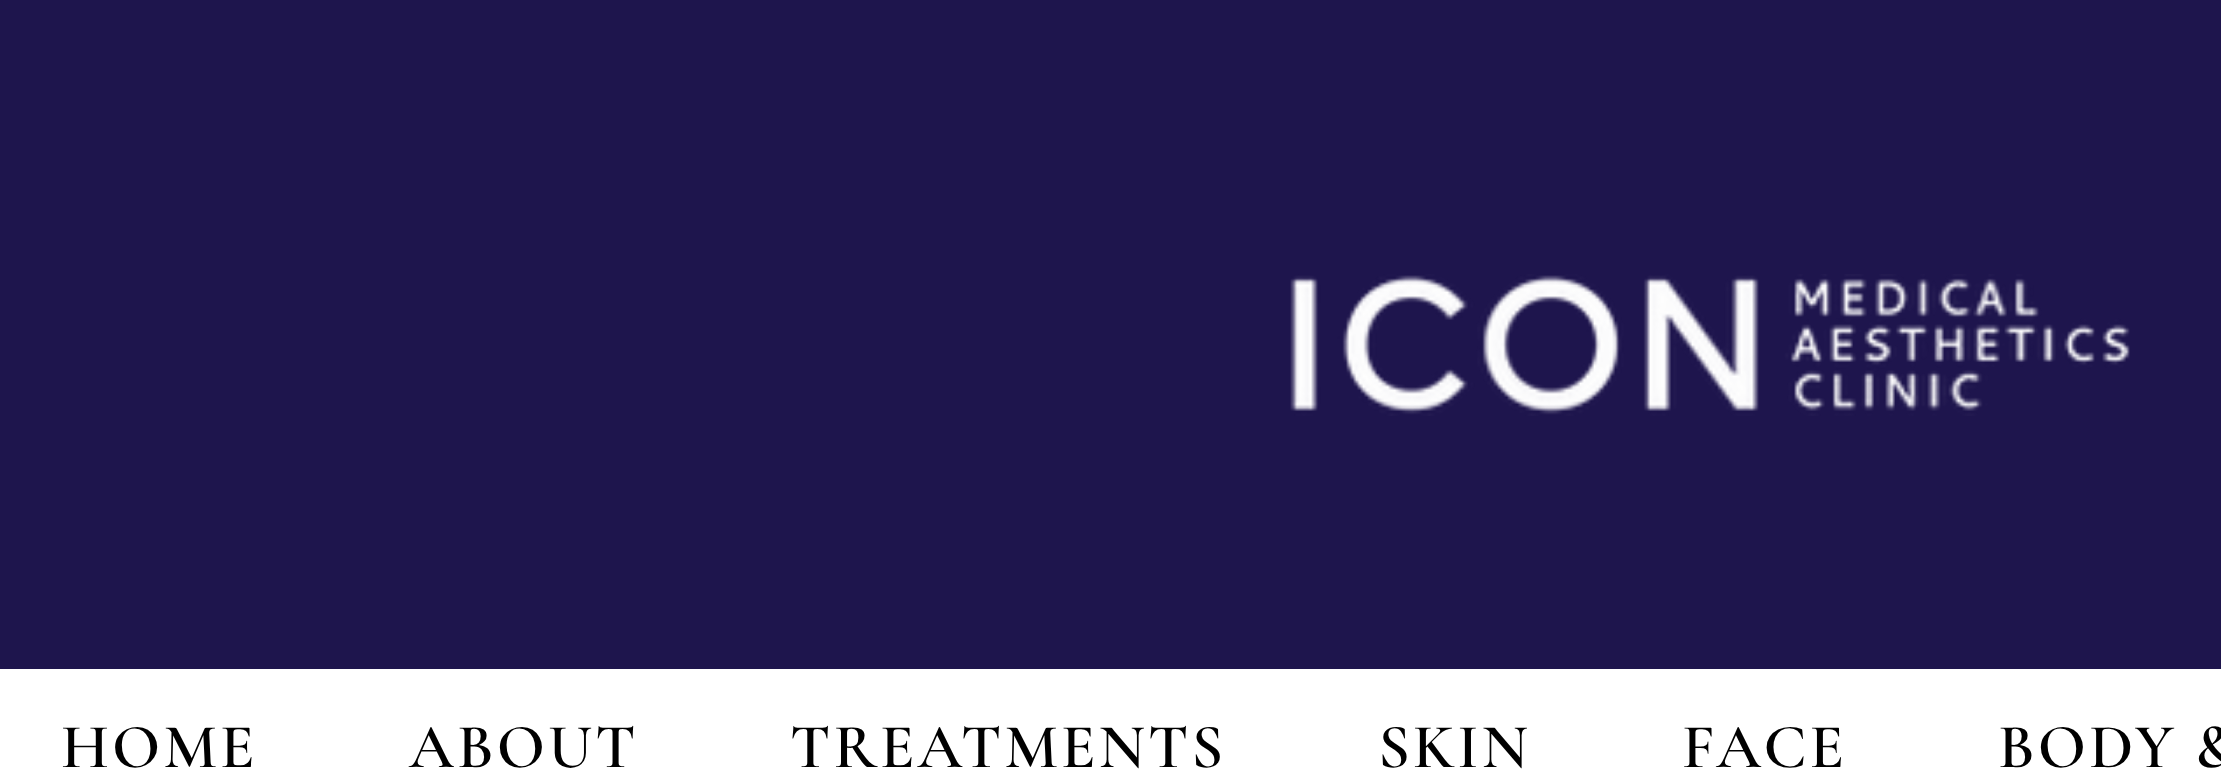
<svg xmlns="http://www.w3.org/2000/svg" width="2221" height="781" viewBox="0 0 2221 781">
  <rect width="100%" height="100%" fill="rgb(30,21,77)"/>
  <image x="1290" y="274" width="840" height="142" href="pic1.png"/>
  <rect x="0" y="669" width="2221" height="112" fill="rgb(255,255,255)"/>
  <g font-family="Cormorant Garamond" font-size="63" font-weight="600" letter-spacing="3.1" fill="rgb(0,0,0)">
    <text x="61" y="767">HOME</text>
    <text x="409" y="767">ABOUT</text>
    <text x="790" y="767">TREATMENTS</text>
    <text x="1378" y="767">SKIN</text>
    <text x="1682" y="767">FACE</text>
    <text x="1998" y="767">BODY &amp;</text>
  </g>
</svg>
